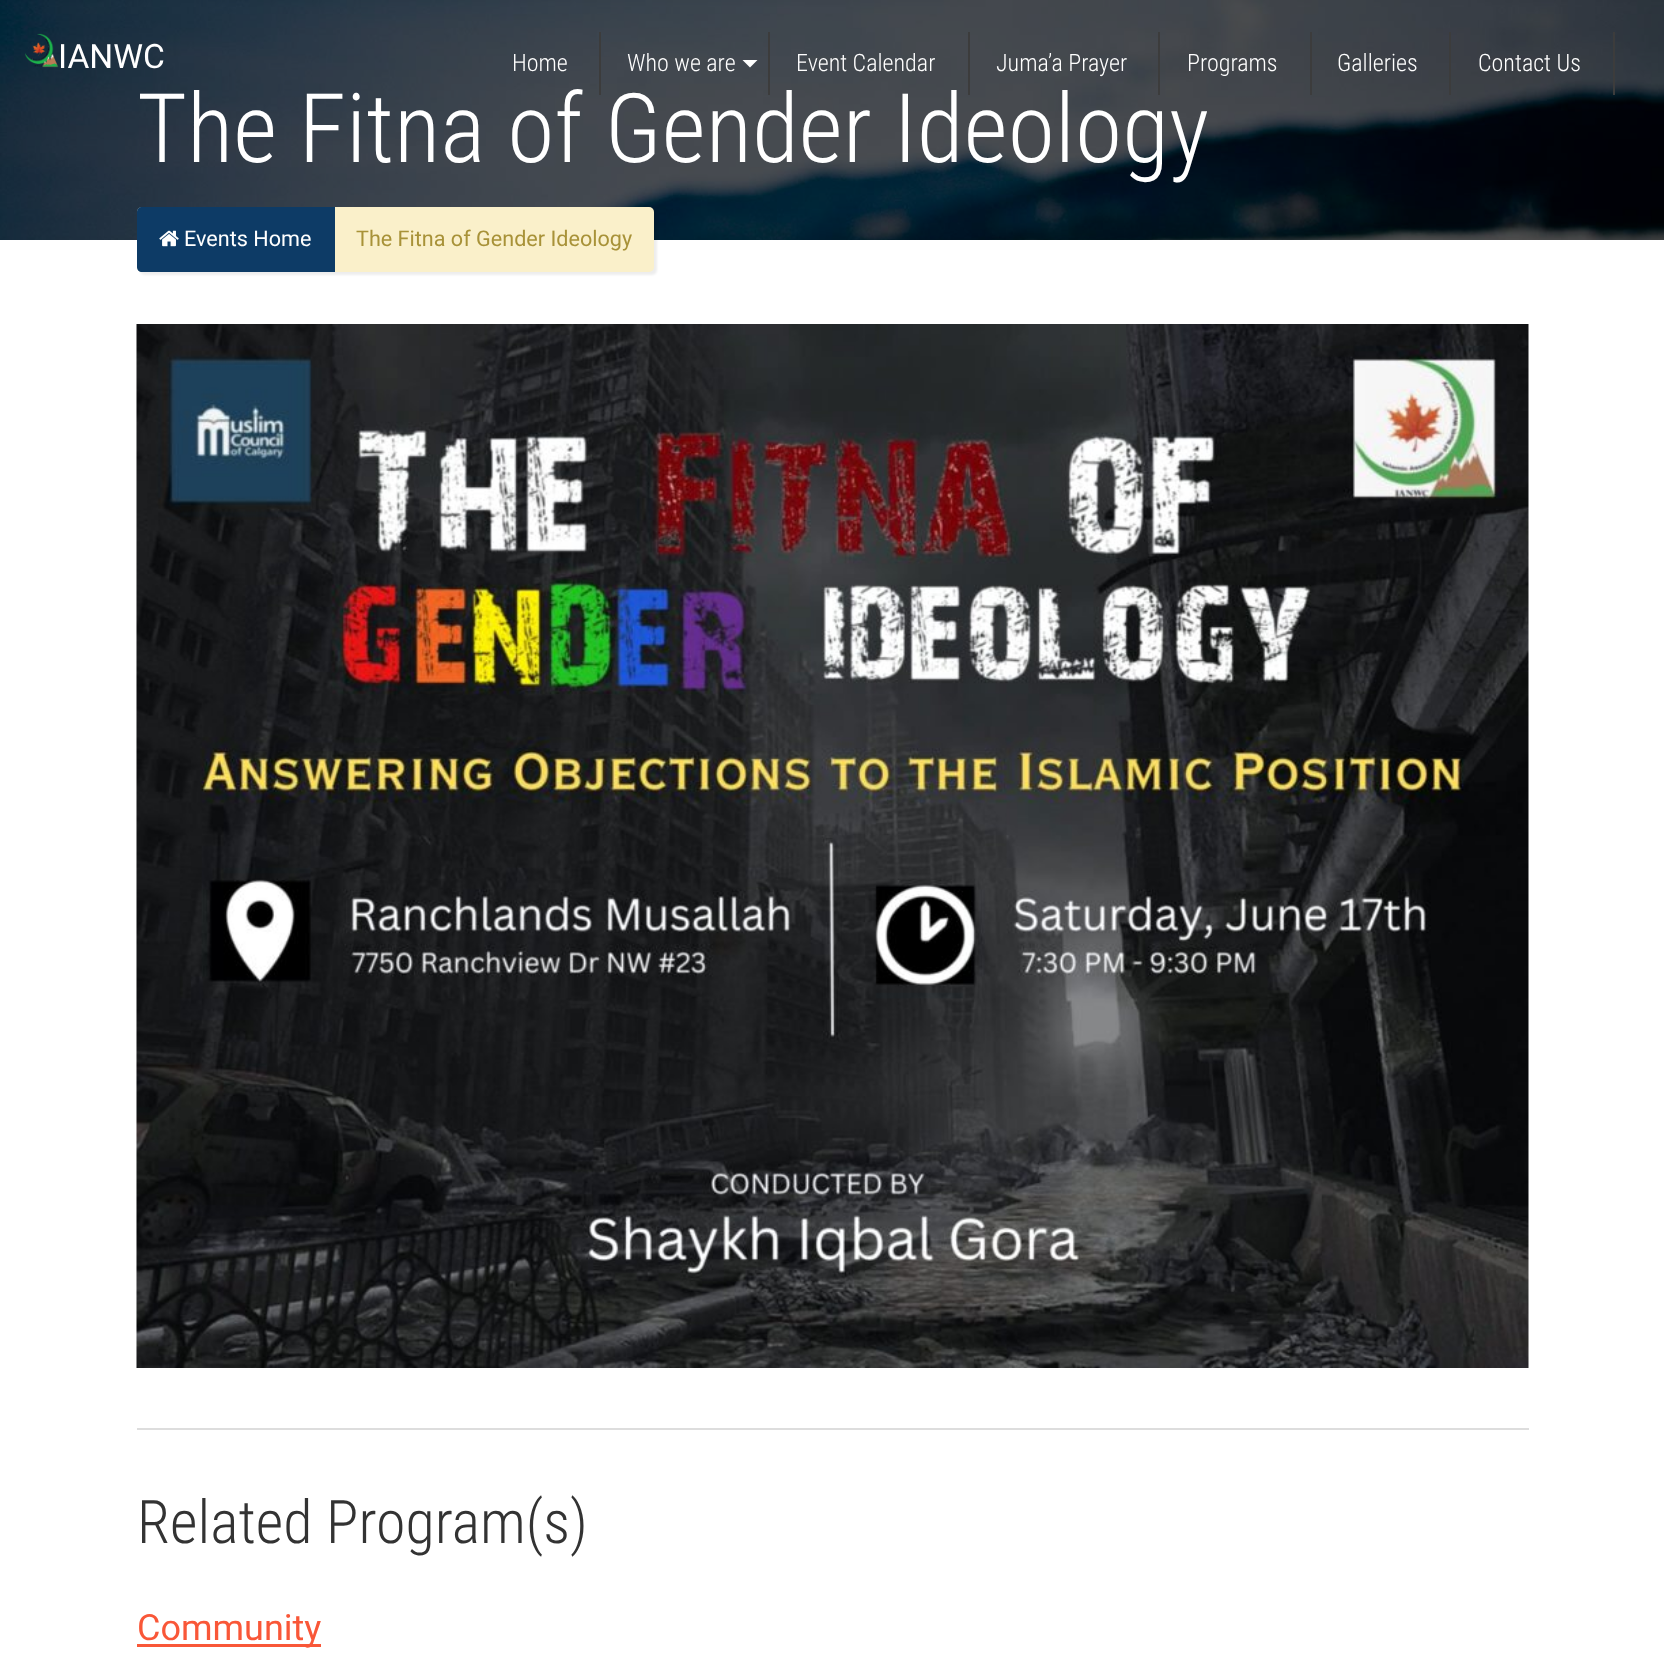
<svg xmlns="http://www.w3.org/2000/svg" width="1664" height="1671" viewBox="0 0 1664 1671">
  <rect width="100%" height="100%" fill="rgb(255,255,255)"/>
  <rect x="0" y="0" width="1664" height="240" fill="rgb(0,0,0)"/>
  <image x="0" y="0" width="1664" height="240" href="pic2.png"/>
  <image x="25" y="33" width="34" height="35" href="pic1.png"/>
  <text x="58" y="68" font-family="Roboto" font-size="33.5" fill="rgb(255,255,255)">IANWC</text>
  <text x="512" y="71" font-family="Roboto Condensed" font-size="24" font-weight="300" fill="rgb(255,255,255)">Home</text>
  <text x="137" y="162" font-family="Roboto Condensed" font-size="96" font-weight="300" fill="rgb(255,255,255)">The Fitna of Gender Ideology</text>
  <rect x="599" y="32" width="2" height="63" fill="rgb(60,60,60)"/>
  <text x="627" y="71" font-family="Roboto Condensed" font-size="24" font-weight="300" fill="rgb(255,255,255)">Who we are</text>
  <path d="M742.5 60H757.5L750 67.5Z" fill="rgb(255,255,255)"/>
  <rect x="768" y="32" width="2" height="63" fill="rgb(60,60,60)"/>
  <text x="796" y="71" font-family="Roboto Condensed" font-size="24" font-weight="300" fill="rgb(255,255,255)">Event Calendar</text>
  <rect x="968" y="32" width="2" height="63" fill="rgb(60,60,60)"/>
  <text x="996" y="71" font-family="Roboto Condensed" font-size="24" font-weight="300" fill="rgb(255,255,255)">Juma’a Prayer</text>
  <rect x="1158" y="32" width="2" height="63" fill="rgb(60,60,60)"/>
  <text x="1187" y="71" font-family="Roboto Condensed" font-size="24" font-weight="300" fill="rgb(255,255,255)">Programs</text>
  <rect x="1310" y="32" width="2" height="63" fill="rgb(60,60,60)"/>
  <text x="1337" y="71" font-family="Roboto Condensed" font-size="24" font-weight="300" fill="rgb(255,255,255)">Galleries</text>
  <rect x="1449" y="32" width="2" height="63" fill="rgb(60,60,60)"/>
  <text x="1478" y="71" font-family="Roboto Condensed" font-size="24" font-weight="300" fill="rgb(255,255,255)">Contact Us</text>
  <rect x="1613" y="32" width="2" height="63" fill="rgb(60,60,60)"/>
  <rect x="140" y="210" width="517" height="65" rx="5" fill="rgba(0,0,0,0.07)" filter="blur(1px)"/>
  <rect x="137" y="207" width="517" height="65" rx="5" fill="rgb(250,240,202)"/>
  <path d="M142 207H335V272H142C139 272 137 270 137 267V212C137 209 139 207 142 207Z" fill="rgb(13,59,102)"/>
  <image x="159" y="230" width="20" height="17" href="pic3.png"/>
  <text x="184" y="246" font-family="Roboto" font-size="21.6" fill="rgb(255,255,255)">Events Home</text>
  <text x="356" y="246" font-family="Roboto" font-size="21.6" fill="rgb(168,146,56)">The Fitna of Gender Ideology</text>
  <image x="136" y="324" width="1393" height="1044" href="pic4.png"/>
  <rect x="137" y="1428" width="1392" height="2" fill="rgb(221,221,221)"/>
  <text x="137" y="1543" font-family="Roboto Condensed" font-size="60" font-weight="300" fill="rgb(51,51,51)">Related Program(s)</text>
  <rect x="137" y="1644" width="184" height="3" fill="rgb(249,87,56)"/>
  <text x="137" y="1640" font-family="Roboto" font-size="36" fill="rgb(249,87,56)">Community</text>
</svg>
